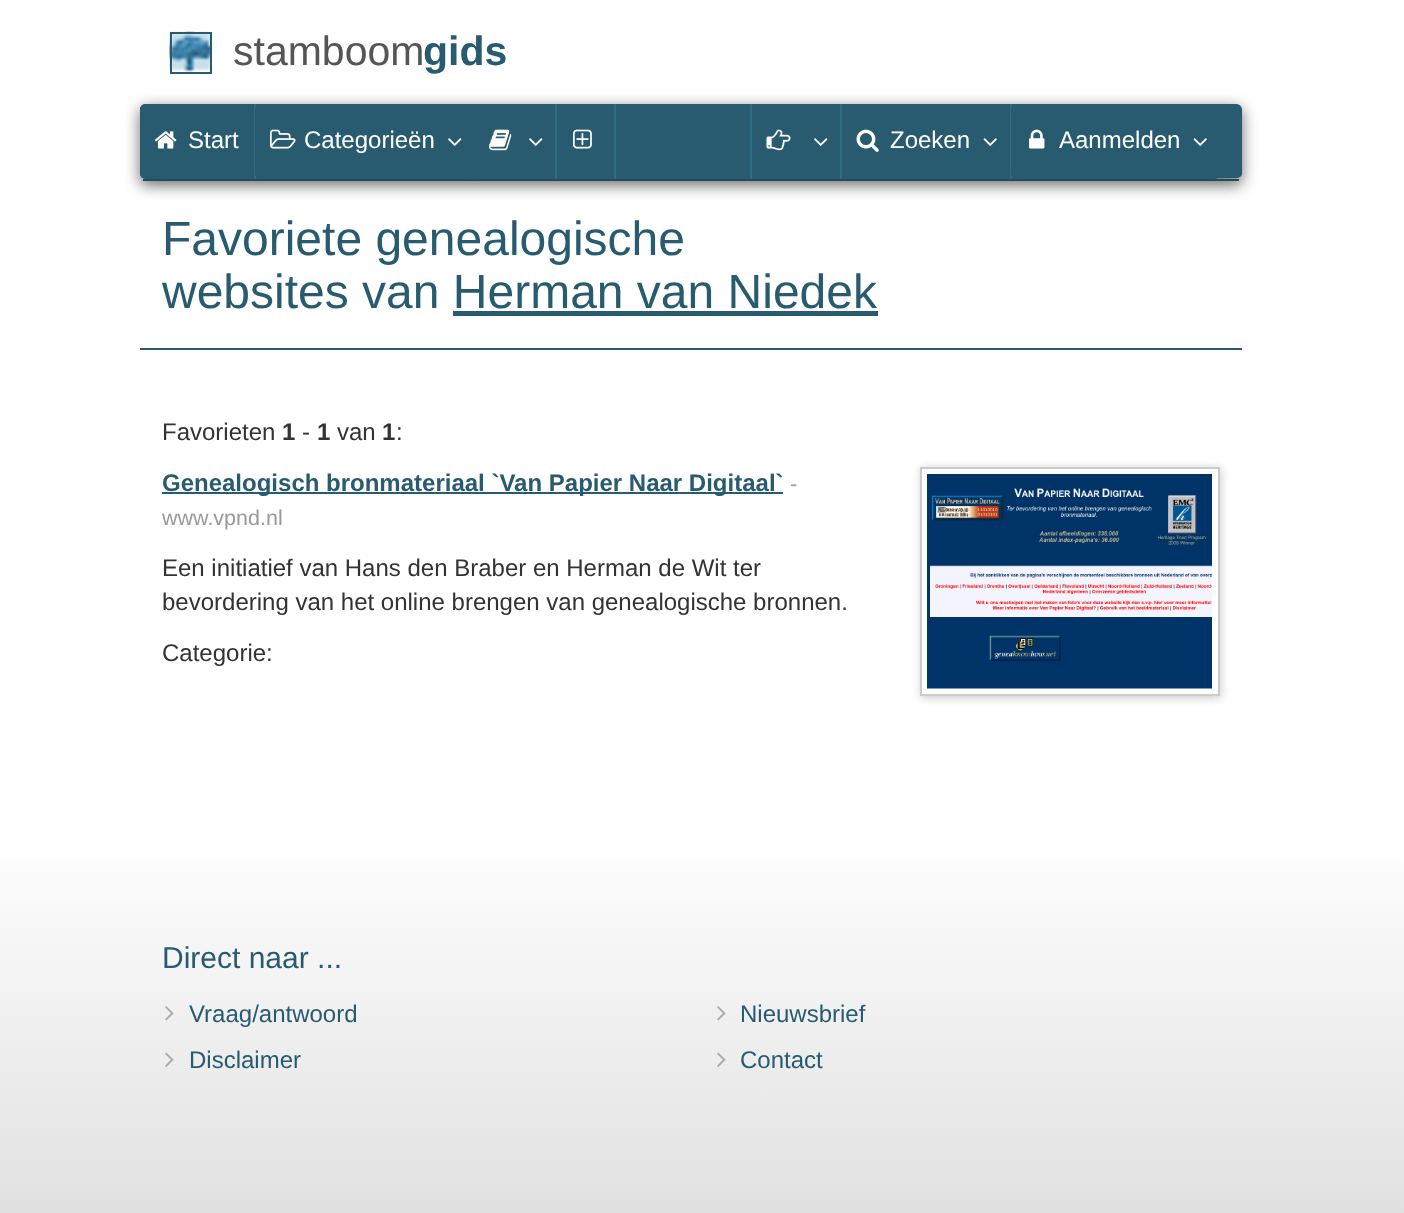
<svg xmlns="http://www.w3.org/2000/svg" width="1404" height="1213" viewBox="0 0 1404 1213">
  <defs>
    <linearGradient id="g1" gradientUnits="userSpaceOnUse" x1="702" y1="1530" x2="702" y2="828"><stop offset="0" stop-color="rgb(200,200,200)"/><stop offset="1" stop-color="rgb(255,255,255)"/></linearGradient>
  </defs>
  <rect width="100%" height="100%" fill="rgb(255,255,255)"/>
  <image x="169" y="31" width="43" height="43" href="pic1.png"/>
  <rect x="171" y="33" width="40" height="40" fill="none" stroke="rgb(40,91,112)" stroke-width="2"/>
  <text x="233" y="65" font-family="Liberation Sans" font-size="41" fill="rgb(85,85,85)">stamboom</text>
  <text x="423" y="65" font-family="Liberation Sans" font-size="41" font-weight="bold" fill="rgb(40,91,112)">gids</text>
  <rect x="140" y="108" width="1102" height="77" rx="6" fill="rgba(50,50,50,0.73)" filter="blur(7.5px)"/>
  <path d="M146 104H1236C1239 104 1242 106 1242 110V174C1242 176 1239 178 1236 178H146C142 178 140 176 140 174V110C140 106 142 104 146 104Z" fill="rgb(40,91,112)"/>
  <rect x="143" y="179" width="1096" height="2" fill="rgb(33,76,93)"/>
  <rect x="140" y="104" width="1080" height="75" rx="6" fill="rgb(40,91,112)"/>
  <rect x="140" y="104" width="114" height="75" rx="6" fill="rgb(40,91,112)"/>
  <image x="154" y="131" width="23" height="18" href="pic2.png"/>
  <text x="188" y="148" font-family="Liberation Sans" font-size="24" fill="rgb(255,255,255)">Start</text>
  <rect x="254" y="104" width="2" height="75" fill="rgb(47,106,131)"/>
  <rect x="255" y="104" width="219" height="75" rx="6" fill="rgb(40,91,112)"/>
  <image x="270" y="129" width="26" height="20" href="pic3.png"/>
  <text x="304" y="148" font-family="Liberation Sans" font-size="24" fill="rgb(255,255,255)">Categorieën</text>
  <image x="448" y="138" width="14" height="8" href="pic4.png"/>
  <image x="489" y="129" width="23" height="22" href="pic5.png"/>
  <image x="529" y="138" width="14" height="8" href="pic4.png"/>
  <rect x="555" y="104" width="2" height="75" fill="rgb(47,106,131)"/>
  <image x="573" y="129" width="19" height="20" href="pic6.png"/>
  <rect x="614" y="104" width="2" height="75" fill="rgb(47,106,131)"/>
  <rect x="750" y="104" width="2" height="75" fill="rgb(47,106,131)"/>
  <image x="766" y="129" width="25" height="22" href="pic7.png"/>
  <image x="814" y="138" width="14" height="8" href="pic4.png"/>
  <rect x="840" y="104" width="2" height="75" fill="rgb(47,106,131)"/>
  <image x="856" y="129" width="23" height="23" href="pic8.png"/>
  <text x="890" y="148" font-family="Liberation Sans" font-size="24" fill="rgb(255,255,255)">Zoeken</text>
  <image x="983" y="138" width="14" height="8" href="pic9.png"/>
  <rect x="1010" y="104" width="2" height="75" fill="rgb(47,106,131)"/>
  <rect x="1011" y="104" width="209" height="75" rx="6" fill="rgb(40,91,112)"/>
  <image x="1029" y="129" width="16" height="20" href="pic10.png"/>
  <text x="1059" y="148" font-family="Liberation Sans" font-size="24" fill="rgb(255,255,255)">Aanmelden</text>
  <image x="1193" y="138" width="14" height="8" href="pic9.png"/>
  <rect x="140" y="348" width="1102" height="2" fill="rgb(40,91,112)"/>
  <g font-family="Liberation Sans" font-size="48" fill="rgb(40,91,112)">
    <text>
      <tspan x="162" y="255">Favoriete genealogische</tspan>
      <tspan x="162" y="308">websites van Herman van Niedek</tspan>
    </text>
  </g>
  <rect x="453" y="311" width="425" height="5" fill="rgb(40,91,112)"/>
  <text x="162" y="440" font-family="Liberation Sans" font-size="24" fill="rgb(51,51,51)">Favorieten</text>
  <text x="282" y="440" font-family="Liberation Sans" font-size="24" font-weight="bold" fill="rgb(51,51,51)">1</text>
  <text x="302" y="440" font-family="Liberation Sans" font-size="24" fill="rgb(51,51,51)">-</text>
  <text x="317" y="440" font-family="Liberation Sans" font-size="24" font-weight="bold" fill="rgb(51,51,51)">1</text>
  <text x="337" y="440" font-family="Liberation Sans" font-size="24" fill="rgb(51,51,51)">van</text>
  <text x="382" y="440" font-family="Liberation Sans" font-size="24" font-weight="bold" fill="rgb(51,51,51)">1</text>
  <text x="396" y="440" font-family="Liberation Sans" font-size="24" fill="rgb(51,51,51)">:</text>
  <rect x="162" y="492" width="621" height="2" fill="rgb(40,91,112)"/>
  <text x="162" y="491" font-family="Liberation Sans" font-size="24" font-weight="bold" fill="rgb(40,91,112)">Genealogisch bronmateriaal `Van Papier Naar Digitaal`</text>
  <g font-family="Liberation Sans" font-size="21.5" fill="rgb(153,153,153)">
    <text x="790" y="491">-</text>
    <text x="162" y="525">www.vpnd.nl</text>
  </g>
  <g font-family="Liberation Sans" font-size="24" fill="rgb(51,51,51)">
    <text>
      <tspan x="162" y="576">Een initiatief van Hans den Braber en Herman de Wit ter</tspan>
      <tspan x="162" y="610">bevordering van het online brengen van genealogische bronnen.</tspan>
    </text>
    <text x="162" y="661">Categorie:</text>
  </g>
  <rect x="921" y="468" width="300" height="230" fill="rgb(204,204,204)" filter="blur(4px)"/>
  <rect x="921" y="468" width="298" height="227" fill="rgb(255,255,255)" stroke="rgb(204,204,204)" stroke-width="2"/>
  <image x="927" y="474" width="285" height="215" href="pic11.png"/>
  <rect x="0" y="860" width="1404" height="353" fill="url(#g1)"/>
  <text x="162" y="968" font-family="Liberation Sans" font-size="30" fill="rgb(40,91,112)">Direct naar ...</text>
  <image x="165" y="1006" width="9" height="15" href="pic12.png"/>
  <text x="189" y="1022" font-family="Liberation Sans" font-size="24" fill="rgb(40,91,112)">Vraag/antwoord</text>
  <image x="165" y="1052" width="9" height="15" href="pic13.png"/>
  <text x="189" y="1068" font-family="Liberation Sans" font-size="24" fill="rgb(40,91,112)">Disclaimer</text>
  <image x="717" y="1006" width="9" height="15" href="pic12.png"/>
  <text x="740" y="1022" font-family="Liberation Sans" font-size="24" fill="rgb(40,91,112)">Nieuwsbrief</text>
  <image x="717" y="1052" width="9" height="15" href="pic13.png"/>
  <text x="740" y="1068" font-family="Liberation Sans" font-size="24" fill="rgb(40,91,112)">Contact</text>
</svg>
